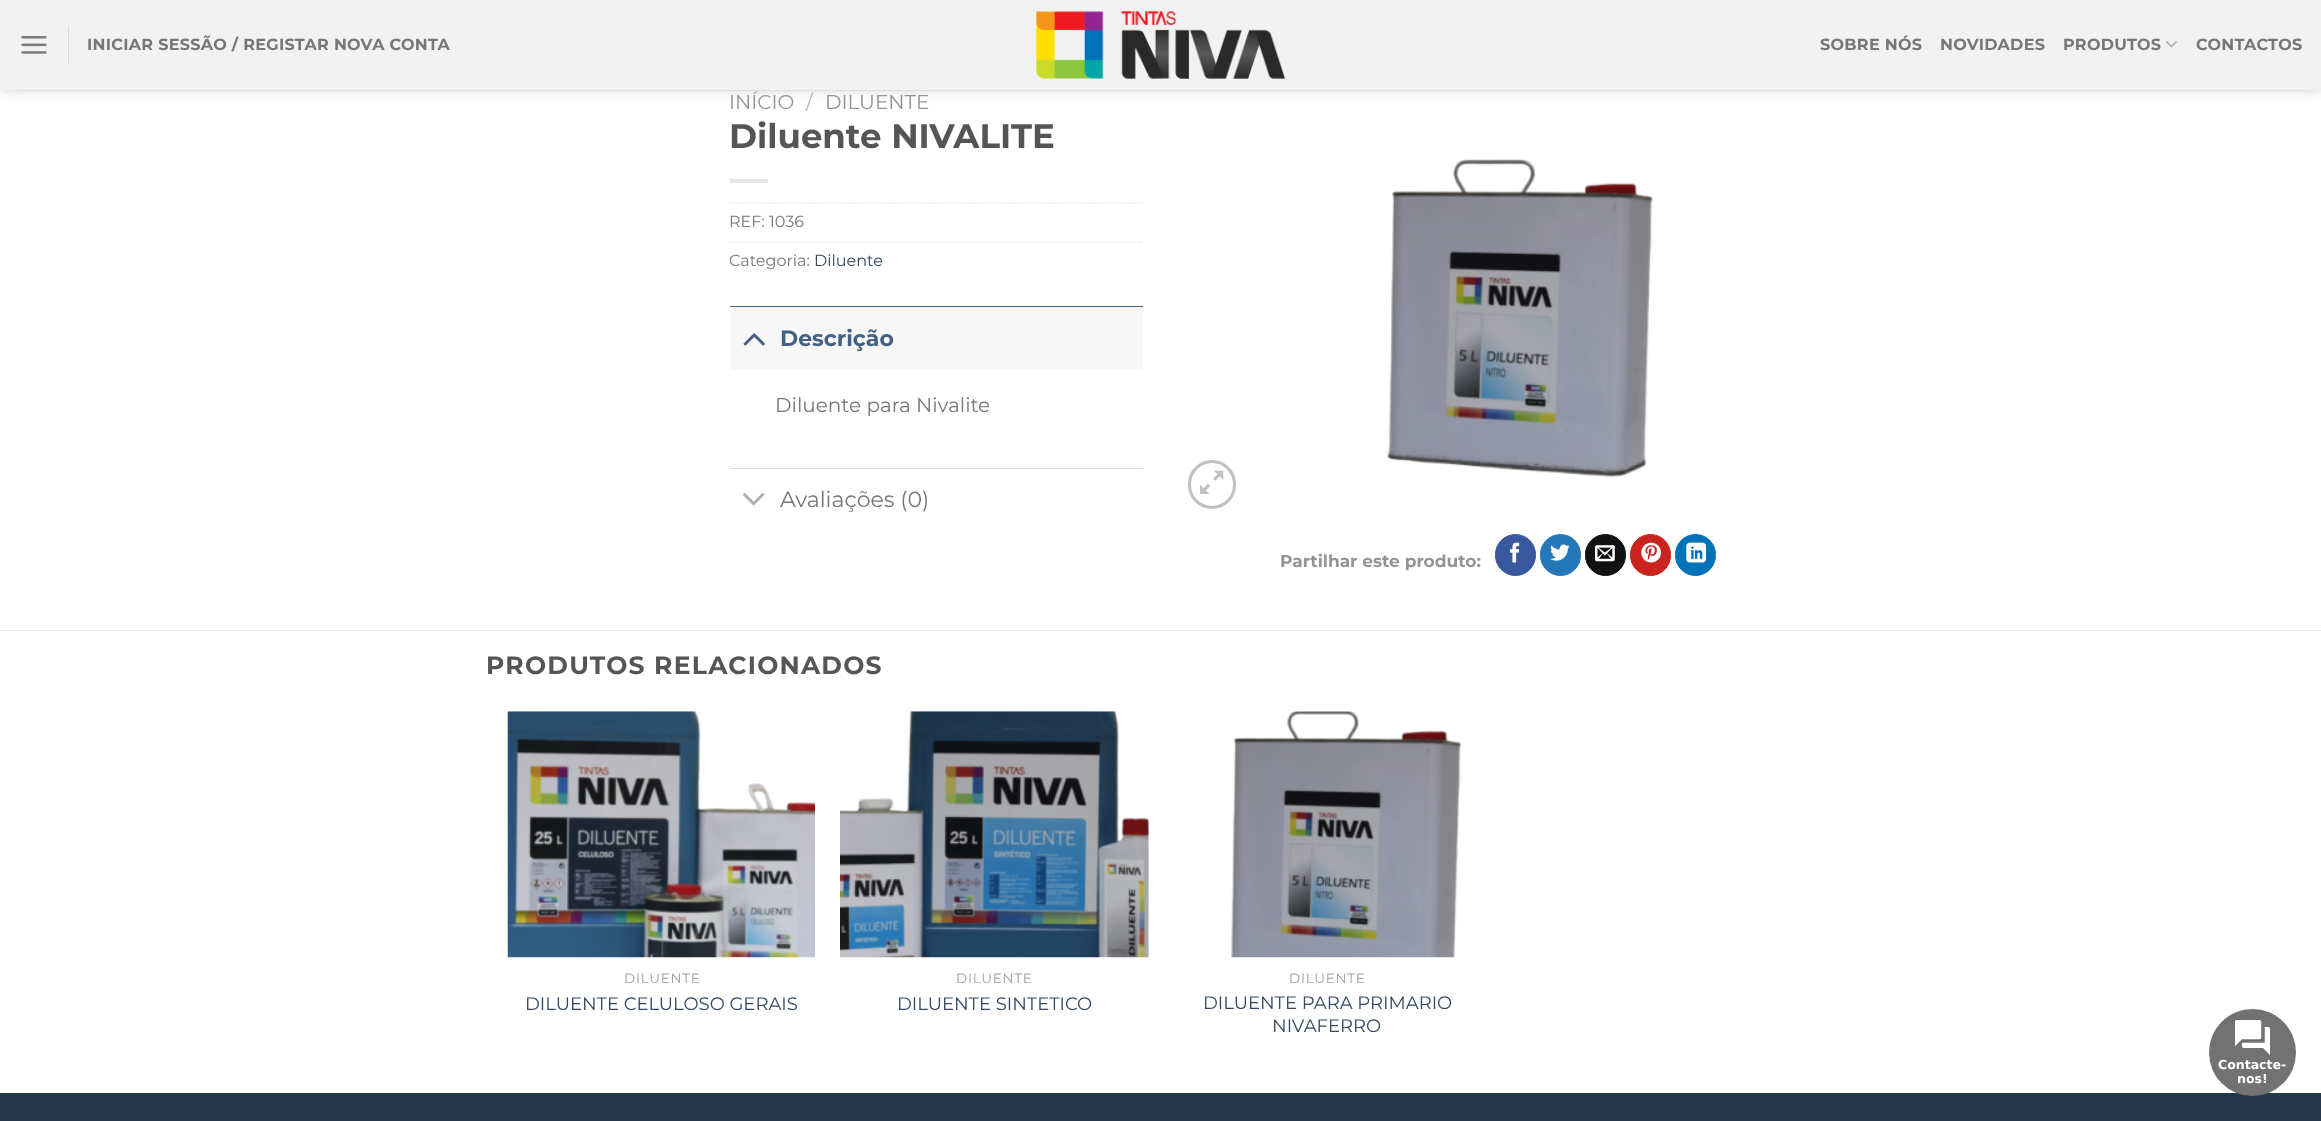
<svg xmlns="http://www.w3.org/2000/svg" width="2321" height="1121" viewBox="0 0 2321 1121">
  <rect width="100%" height="100%" fill="rgb(255,255,255)"/>
  <rect x="1" y="1" width="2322" height="90" fill="rgba(0,0,0,0.15)" filter="blur(6px)"/>
  <rect x="0" y="0" width="2321" height="90" fill="rgb(242,242,242)"/>
  <image x="21" y="36" width="26" height="18" href="pic1.png"/>
  <rect x="68" y="26" width="1" height="38" fill="rgb(218,218,218)"/>
  <text x="87" y="50" font-family="Montserrat" font-size="16" font-weight="bold" letter-spacing="0.3" fill="rgb(119,119,119)">INICIAR SESSÃO / REGISTAR NOVA CONTA</text>
  <image x="1036" y="11" width="249" height="68" href="pic2.png"/>
  <g font-family="Montserrat" font-size="16" font-weight="bold" letter-spacing="0.3" fill="rgb(119,119,119)">
    <text x="1820" y="50">SOBRE NÓS</text>
    <text x="1940" y="50">NOVIDADES</text>
    <text x="2063" y="50">PRODUTOS</text>
  </g>
  <image x="2166" y="41" width="11" height="7" href="pic3.png"/>
  <text x="2196" y="50" font-family="Montserrat" font-size="16" font-weight="bold" letter-spacing="0.3" fill="rgb(119,119,119)">CONTACTOS</text>
  <rect x="19" y="90" width="2284" height="1" fill="rgb(223,223,223)"/>
  <text x="729" y="109" font-family="Montserrat" font-size="20" fill="rgb(148,148,148)">INÍCIO</text>
  <text x="806" y="109" font-family="Montserrat" font-size="20" fill="rgb(178,178,178)">/</text>
  <text x="825" y="109" font-family="Montserrat" font-size="20" fill="rgb(148,148,148)">DILUENTE</text>
  <text x="729" y="148" font-family="Montserrat" font-size="34" font-weight="bold" fill="rgb(85,85,85)">Diluente NIVALITE</text>
  <rect x="730" y="179" width="38" height="4" fill="rgb(230,230,230)"/>
  <path d="M730 203H1142.5" fill="none" stroke="rgb(221,221,221)" stroke-width="1.2" stroke-dasharray="1.25 1.25"/>
  <text x="729" y="227" font-family="Montserrat" font-size="16" fill="rgb(119,119,119)">REF: 1036</text>
  <path d="M730 242H1142.5" fill="none" stroke="rgb(221,221,221)" stroke-width="1.2" stroke-dasharray="1.25 1.25"/>
  <text x="729" y="266" font-family="Montserrat" font-size="16" fill="rgb(119,119,119)">Categoria:</text>
  <text x="814" y="266" font-family="Montserrat" font-size="16" fill="rgb(51,72,98)">Diluente</text>
  <rect x="730" y="307" width="413" height="63" fill="rgb(247,247,247)"/>
  <rect x="730" y="306" width="413" height="1" fill="rgb(68,96,132)"/>
  <image x="743" y="333" width="22" height="13" href="pic4.png"/>
  <text x="780" y="346" font-family="Montserrat" font-size="22" font-weight="bold" fill="rgb(68,96,132)">Descrição</text>
  <text x="775" y="412" font-family="Montserrat" font-size="20" fill="rgb(119,119,119)">Diluente para Nivalite</text>
  <rect x="730" y="468" width="413" height="1" fill="rgb(221,221,221)"/>
  <image x="743" y="493" width="22" height="13" href="pic5.png"/>
  <text x="780" y="507" font-family="Montserrat" font-size="22" fill="rgb(119,119,119)">Avaliações (0)</text>
  <image x="1387" y="158" width="267" height="320" href="pic6.png"/>
  <rect x="1189.5" y="461.5" width="45" height="46" rx="22.5" fill="none" stroke="rgb(192,192,192)" stroke-width="3"/>
  <image x="1200" y="470" width="24" height="24" href="pic7.png"/>
  <text x="1280" y="567" font-family="Montserrat" font-size="17" font-weight="bold" fill="rgb(148,148,148)">Partilhar este produto:</text>
  <rect x="1495.5" y="534.5" width="40" height="41" rx="20" fill="rgb(58,88,157)" stroke="rgb(58,88,157)"/>
  <image x="1509" y="542" width="11" height="21" href="pic8.png"/>
  <rect x="1540.5" y="534.5" width="40" height="41" rx="20" fill="rgb(36,120,186)" stroke="rgb(36,120,186)"/>
  <image x="1550" y="544" width="20" height="17" href="pic9.png"/>
  <rect x="1585.5" y="534.5" width="40" height="41" rx="20" fill="rgb(17,17,17)" stroke="rgb(17,17,17)"/>
  <image x="1595" y="545" width="20" height="17" href="pic10.png"/>
  <rect x="1630.5" y="534.5" width="40" height="41" rx="20" fill="rgb(203,35,32)" stroke="rgb(203,35,32)"/>
  <image x="1641" y="542" width="20" height="21" href="pic11.png"/>
  <rect x="1675.5" y="534.5" width="40" height="41" rx="20" fill="rgb(0,114,183)" stroke="rgb(0,114,183)"/>
  <image x="1686" y="542" width="21" height="21" href="pic12.png"/>
  <rect x="0" y="630" width="2321" height="1" fill="rgb(236,236,236)"/>
  <text x="486" y="674" font-family="Montserrat" font-size="25" font-weight="bold" letter-spacing="1.25" fill="rgb(85,85,85)">PRODUTOS RELACIONADOS</text>
  <image x="507" y="711" width="308" height="247" href="pic13.png"/>
  <text x="624" y="983" font-family="Montserrat" font-size="13.5" letter-spacing="0.75" fill="rgb(160,160,160)">DILUENTE</text>
  <text x="525" y="1010" font-family="Montserrat" font-size="18" fill="rgb(51,72,98)">DILUENTE CELULOSO GERAIS</text>
  <image x="840" y="711" width="309" height="247" href="pic14.png"/>
  <text x="956" y="983" font-family="Montserrat" font-size="13.5" letter-spacing="0.75" fill="rgb(160,160,160)">DILUENTE</text>
  <text x="897" y="1010" font-family="Montserrat" font-size="18" fill="rgb(51,72,98)">DILUENTE SINTETICO</text>
  <image x="1231" y="711" width="231" height="247" href="pic15.png"/>
  <text x="1289" y="983" font-family="Montserrat" font-size="13.5" letter-spacing="0.75" fill="rgb(160,160,160)">DILUENTE</text>
  <g font-family="Montserrat" font-size="18" fill="rgb(51,72,98)">
    <text x="1203" y="1009">DILUENTE PARA PRIMARIO</text>
    <text x="1272" y="1032">NIVAFERRO</text>
  </g>
  <rect x="0" y="1093" width="2321" height="28" fill="rgb(39,54,71)"/>
  <circle cx="2252.5" cy="1052.5" r="43.5" fill="rgb(114,114,114)"/>
  <image x="2235" y="1020" width="35" height="35" href="pic16.png"/>
  <g font-family="DejaVu Sans" font-size="12.5" font-weight="bold" fill="rgb(255,255,255)">
    <text x="2218" y="1069">Contacte-</text>
    <text x="2237" y="1083">nos!</text>
  </g>
</svg>
